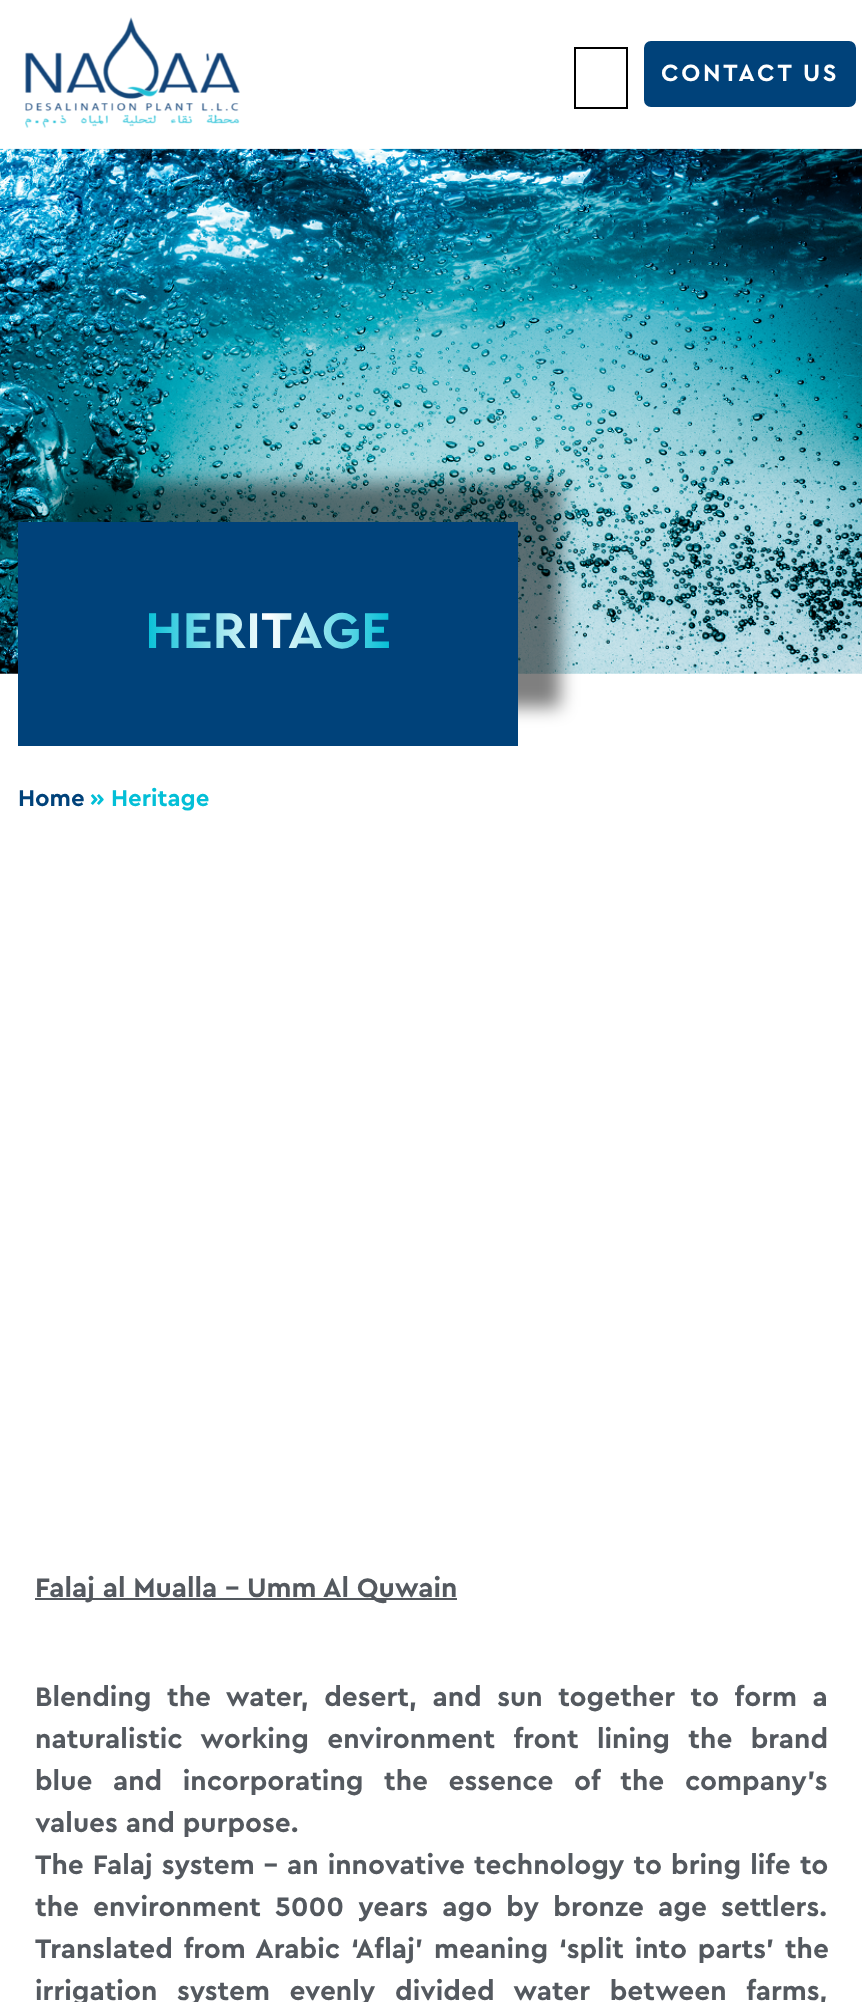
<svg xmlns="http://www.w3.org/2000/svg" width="862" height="2002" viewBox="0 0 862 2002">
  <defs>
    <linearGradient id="g1" gradientUnits="userSpaceOnUse" x1="145" y1="538" x2="391" y2="538"><stop offset="0" stop-color="rgb(3,191,215)"/><stop offset="0.5" stop-color="rgb(255,255,255)"/><stop offset="1" stop-color="rgb(3,191,215)"/></linearGradient>
  </defs>
  <rect width="100%" height="100%" fill="rgb(255,255,255)"/>
  <image x="0" y="148" width="862" height="526" href="pic2.png"/>
  <rect x="0" y="148" width="862" height="1" fill="rgba(255,255,255,0.63)"/>
  <image x="25" y="17" width="215" height="111" href="pic1.png"/>
  <rect x="575" y="48" width="52" height="60" fill="none" stroke="rgb(0,0,0)" stroke-width="2"/>
  <rect x="643" y="40" width="214" height="68" rx="8" fill="rgb(0,66,122)" stroke="rgb(255,255,255)" stroke-width="2"/>
  <text x="661" y="81" font-family="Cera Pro" font-size="24.5" font-weight="bold" letter-spacing="2.75" fill="rgb(255,255,255)">CONTACT US</text>
  <rect x="60" y="483" width="500" height="224" fill="rgba(0,0,0,0.5)" filter="blur(9px)"/>
  <rect x="18" y="522" width="500" height="224" fill="rgb(0,66,122)"/>
  <text x="145" y="648" font-family="Cera Pro" font-size="52.5" font-weight="bold" fill="url(#g1)">HERITAGE</text>
  <text x="18" y="806" font-family="Cera Pro" font-size="24" font-weight="bold" fill="rgb(0,66,122)">Home</text>
  <text x="90" y="806" font-family="Cera Pro" font-size="24" font-weight="bold" fill="rgb(3,191,215)">» Heritage</text>
  <rect x="35" y="1598" width="422" height="2" fill="rgb(84,89,95)"/>
  <g font-family="Cera Pro" font-size="28" font-weight="bold" fill="rgb(84,89,95)">
    <text x="35" y="1597">Falaj al Mualla – Umm Al Quwain</text>
    <text>
      <tspan x="35" y="1706" word-spacing="7.75">Blending the water, desert, and sun together to form a</tspan>
      <tspan x="35" y="1748" word-spacing="10.5">naturalistic working environment front lining the brand</tspan>
      <tspan x="35" y="1790" word-spacing="12.75">blue and incorporating the essence of the company’s</tspan>
      <tspan x="35" y="1832">values and purpose.</tspan>
      <tspan x="35" y="1874" word-spacing="1.25">The Falaj system – an innovative technology to bring life to</tspan>
      <tspan x="35" y="1916" word-spacing="6.25">the environment 5000 years ago by bronze age settlers.</tspan>
      <tspan x="35" y="1958" word-spacing="3">Translated from Arabic ‘Aflaj’ meaning ‘split into parts’ the</tspan>
      <tspan x="35" y="2000" word-spacing="11.75">irrigation system evenly divided water between farms,</tspan>
    </text>
  </g>
</svg>
